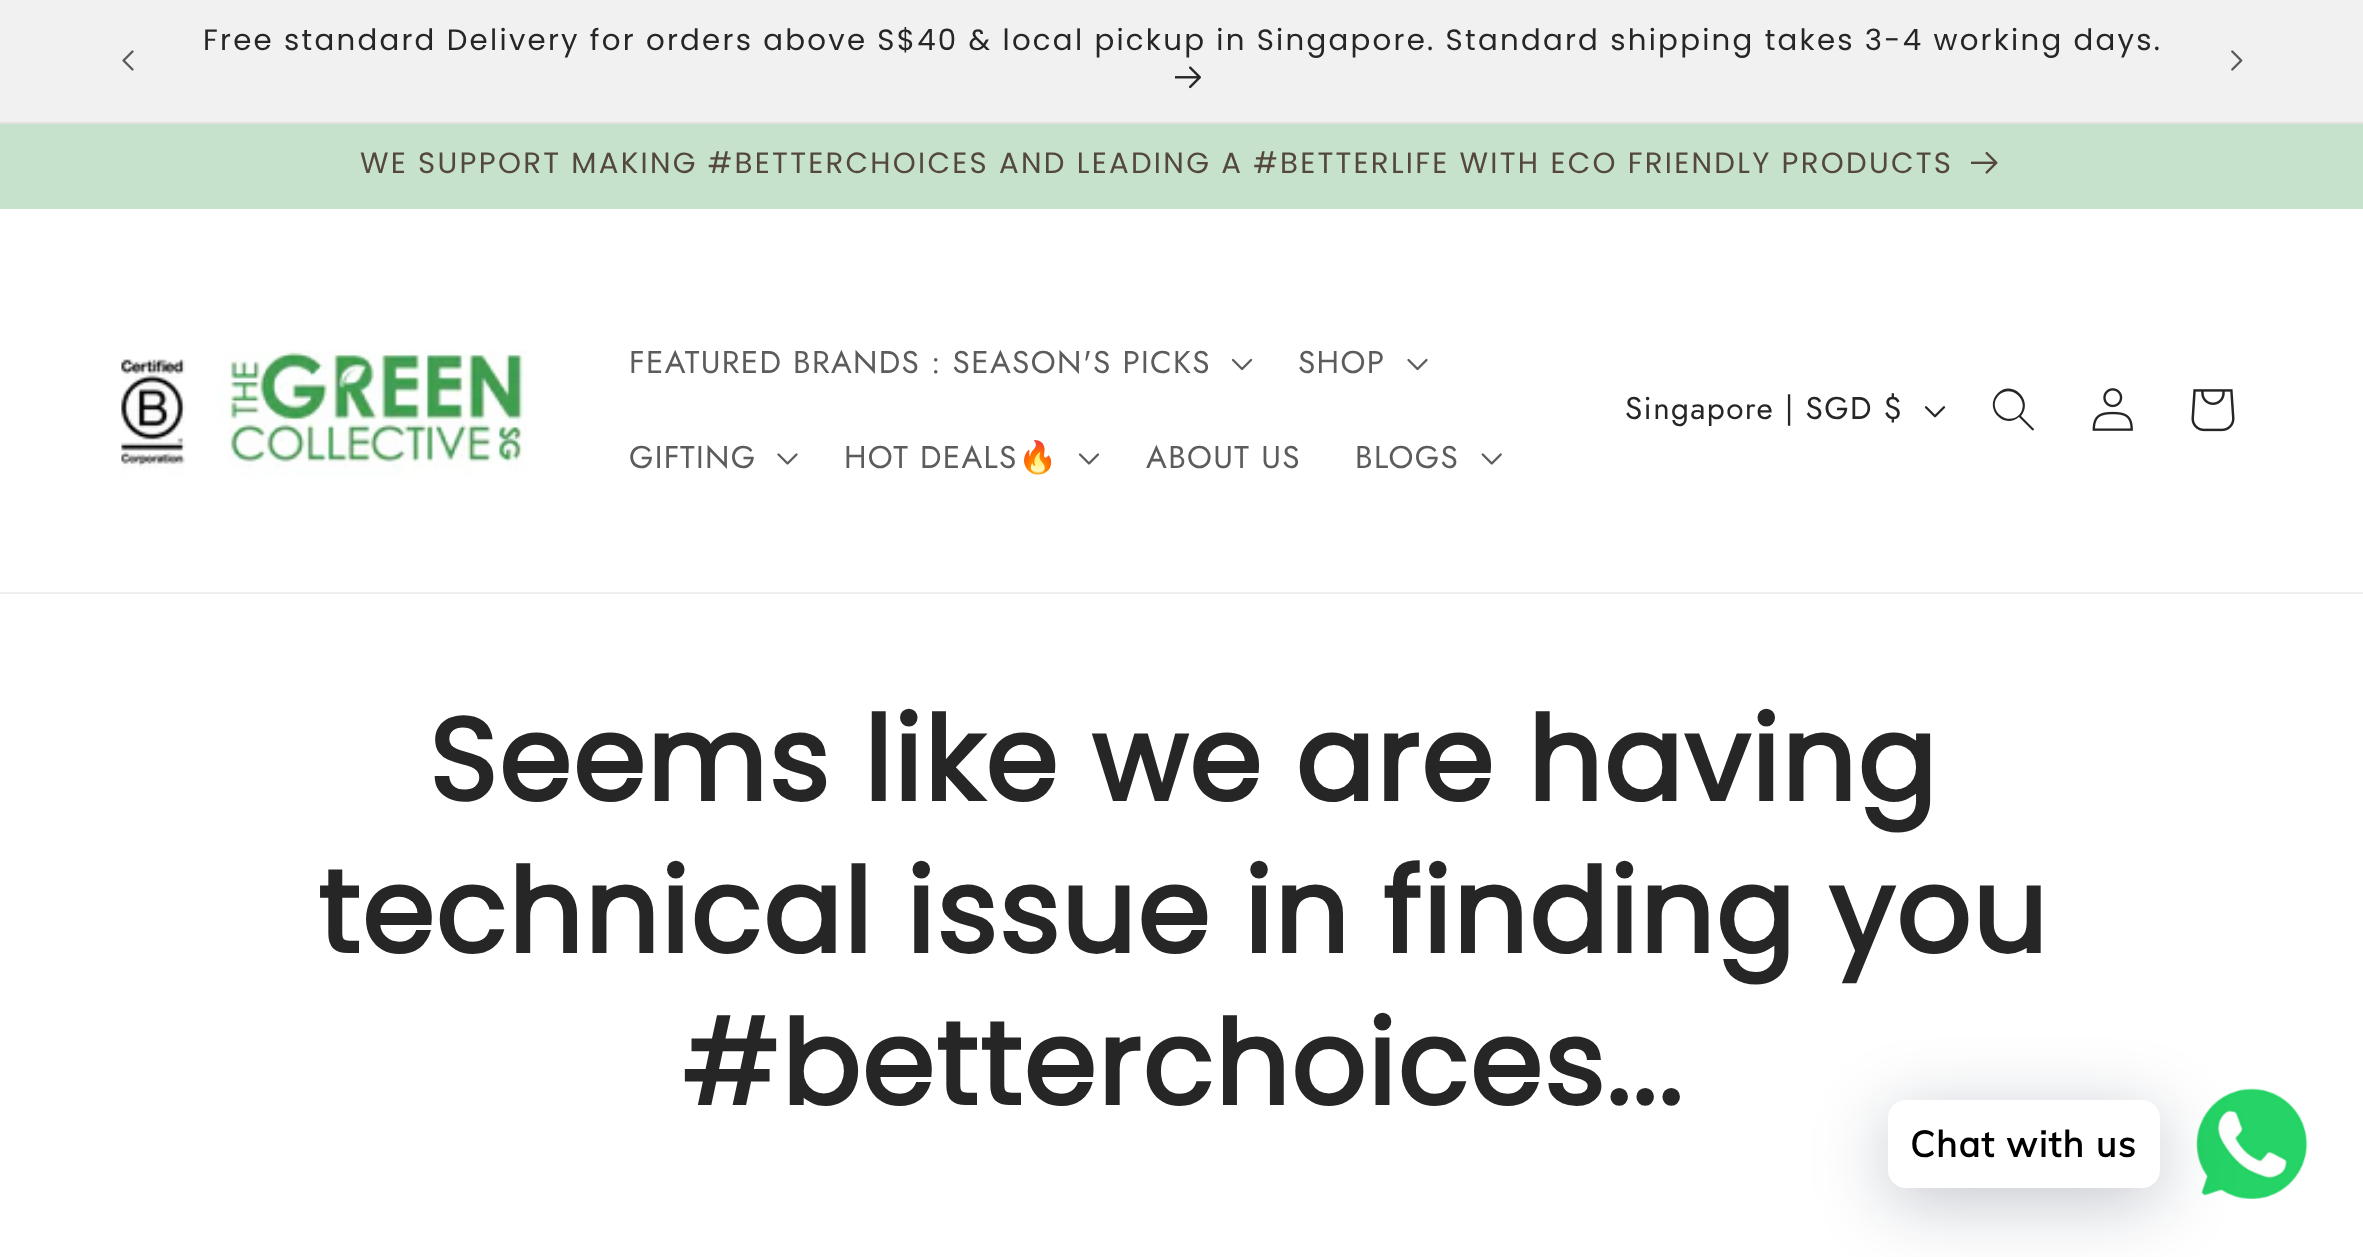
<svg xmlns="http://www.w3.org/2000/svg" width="2363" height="1257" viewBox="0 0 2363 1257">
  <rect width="100%" height="100%" fill="rgb(241,241,241)"/>
  <rect x="0" y="122" width="2363" height="2" fill="rgb(225,225,225)"/>
  <text x="203" y="50" font-family="Poppins" font-size="29.25" letter-spacing="2.25" fill="rgb(38,38,38)">Free standard Delivery for orders above S$40 &amp; local pickup in Singapore. Standard shipping takes 3-4 working days.</text>
  <image x="1175" y="66" width="26" height="23" href="pic1.png"/>
  <image x="122" y="50" width="12" height="21" href="pic2.png"/>
  <image x="2231" y="50" width="12" height="21" href="pic3.png"/>
  <rect x="0" y="124" width="2363" height="85" fill="rgb(198,226,204)"/>
  <text x="360" y="173" font-family="Poppins" font-size="29.25" letter-spacing="2.25" fill="rgb(84,72,60)">WE SUPPORT MAKING #BETTERCHOICES AND LEADING A #BETTERLIFE WITH ECO FRIENDLY PRODUCTS</text>
  <image x="1971" y="152" width="27" height="22" href="pic4.png"/>
  <rect x="0" y="209" width="2363" height="383" fill="rgb(255,255,255)"/>
  <rect x="0" y="592" width="2363" height="2" fill="rgb(238,238,238)"/>
  <image x="121" y="350" width="406" height="127" href="pic5.png"/>
  <text x="629" y="373" font-family="Jost" font-size="31.5" letter-spacing="1.35" fill="rgb(92,92,92)">FEATURED BRANDS : SEASON'S PICKS</text>
  <image x="1231" y="358" width="22" height="13" href="pic6.png"/>
  <text x="1298" y="373" font-family="Jost" font-size="31.5" letter-spacing="1.35" fill="rgb(92,92,92)">SHOP</text>
  <image x="1407" y="358" width="21" height="13" href="pic7.png"/>
  <text x="629" y="468" font-family="Jost" font-size="31.5" letter-spacing="1.35" fill="rgb(92,92,92)">GIFTING</text>
  <image x="777" y="453" width="21" height="12" href="pic8.png"/>
  <text x="844" y="468" font-family="Jost" font-size="31.5" letter-spacing="1.35" fill="rgb(92,92,92)">HOT DEALS</text>
  <text x="1018" y="468" font-family="Noto Color Emoji" font-size="31.5" letter-spacing="1.35" fill="rgb(92,92,92)">🔥</text>
  <image x="1078" y="453" width="22" height="12" href="pic9.png"/>
  <g font-family="Jost" font-size="31.5" letter-spacing="1.35" fill="rgb(92,92,92)">
    <text x="1146" y="468">ABOUT US</text>
    <text x="1355" y="468">BLOGS</text>
  </g>
  <image x="1481" y="453" width="21" height="12" href="pic10.png"/>
  <text x="1625" y="419" font-family="Jost" font-size="31.5" letter-spacing="1.35" fill="rgb(38,38,38)">Singapore | SGD $</text>
  <image x="1924" y="406" width="22" height="12" href="pic11.png"/>
  <path d="M2019 415C2006 427 1986 408 1999 395C2012 383 2031 402 2019 415M2019 417C2004 430 1983 408 1998 393C2012 379 2034 400 2021 416L2034 429C2034 430 2033 431 2032 430Z" fill="rgb(38,38,38)" fill-rule="evenodd"/>
  <image x="2092" y="388" width="41" height="43" href="pic12.png"/>
  <image x="2191" y="389" width="44" height="43" href="pic13.png"/>
  <rect x="0" y="594" width="2363" height="663" fill="rgb(255,255,255)"/>
  <g font-family="Poppins" font-size="117" font-weight="bold" letter-spacing="1.35" fill="rgb(38,38,38)">
    <text x="428" y="801">Seems like we are having</text>
    <text x="317" y="953">technical issue in finding you</text>
    <text x="681" y="1105">#betterchoices...</text>
  </g>
  <image x="2196" y="1088" width="112" height="111" href="pic14.png"/>
  <rect x="1888" y="1114" width="272" height="88" rx="18" fill="rgba(0,18,46,0.24)" filter="blur(36px)"/>
  <rect x="1888" y="1100" width="272" height="88" rx="18" fill="rgb(255,255,255)"/>
  <text x="1910" y="1157" font-family="Muli" font-size="36" font-weight="bold" letter-spacing="1.35" fill="rgb(0,0,0)">Chat with us</text>
</svg>
